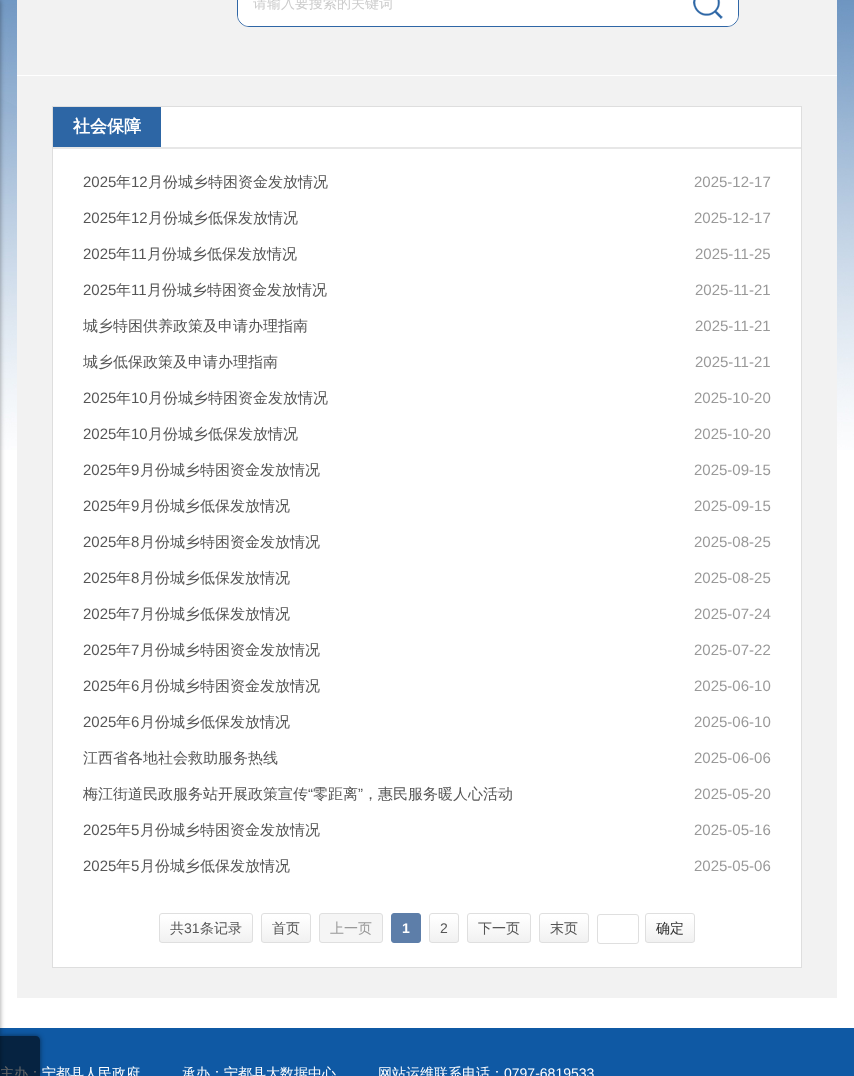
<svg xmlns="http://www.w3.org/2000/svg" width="854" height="1076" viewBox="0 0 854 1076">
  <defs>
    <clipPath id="clip1"><path d="M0 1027H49V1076H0ZM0 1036H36C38 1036 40 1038 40 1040V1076H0Z" clip-rule="evenodd"/></clipPath>
    <clipPath id="clip2"><rect x="159" y="913" width="94" height="30" rx="3"/></clipPath>
    <linearGradient id="g1" gradientUnits="userSpaceOnUse" x1="206" y1="914" x2="206" y2="942"><stop offset="0.1" stop-color="rgb(255,255,255)"/><stop offset="1" stop-color="rgb(241,241,241)"/></linearGradient>
    <clipPath id="clip3"><rect x="261" y="913" width="50" height="30" rx="3"/></clipPath>
    <linearGradient id="g2" gradientUnits="userSpaceOnUse" x1="286" y1="914" x2="286" y2="942"><stop offset="0.1" stop-color="rgb(255,255,255)"/><stop offset="1" stop-color="rgb(241,241,241)"/></linearGradient>
    <clipPath id="clip4"><rect x="429" y="913" width="30" height="30" rx="3"/></clipPath>
    <linearGradient id="g3" gradientUnits="userSpaceOnUse" x1="444" y1="914" x2="444" y2="942"><stop offset="0.1" stop-color="rgb(255,255,255)"/><stop offset="1" stop-color="rgb(241,241,241)"/></linearGradient>
    <clipPath id="clip5"><rect x="467" y="913" width="64" height="30" rx="3"/></clipPath>
    <linearGradient id="g4" gradientUnits="userSpaceOnUse" x1="499" y1="914" x2="499" y2="942"><stop offset="0.1" stop-color="rgb(255,255,255)"/><stop offset="1" stop-color="rgb(241,241,241)"/></linearGradient>
    <clipPath id="clip6"><rect x="539" y="913" width="50" height="30" rx="3"/></clipPath>
    <linearGradient id="g5" gradientUnits="userSpaceOnUse" x1="564" y1="914" x2="564" y2="942"><stop offset="0.1" stop-color="rgb(255,255,255)"/><stop offset="1" stop-color="rgb(241,241,241)"/></linearGradient>
    <clipPath id="clip7"><rect x="645" y="913" width="50" height="30" rx="3"/></clipPath>
    <linearGradient id="g6" gradientUnits="userSpaceOnUse" x1="670" y1="914" x2="670" y2="942"><stop offset="0.1" stop-color="rgb(255,255,255)"/><stop offset="1" stop-color="rgb(241,241,241)"/></linearGradient>
  </defs>
  <rect width="100%" height="100%" fill="rgb(255,255,255)"/>
  <image x="0" y="0" width="854" height="450" href="pic1.png"/>
  <rect x="17" y="0" width="820" height="998" fill="rgb(242,242,242)"/>
  <rect x="17" y="75" width="820" height="1" fill="rgb(255,255,255)"/>
  <rect x="237.5" y="-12.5" width="501" height="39" rx="11.5" fill="none" stroke="rgb(47,102,166)"/>
  <path d="M249-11H678V26H249C243 26 238 21 238 15V0C238-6 243-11 249-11Z" fill="rgb(255,255,255)"/>
  <text x="253" y="8" font-family="WenQuanYi Zen Hei" font-size="14" font-weight="500" fill="rgb(204,204,204)">请输入要搜索的关键词</text>
  <path d="M678-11H727C733-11 738-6 738 0V15C738 21 733 26 727 26H678Z" fill="rgb(255,255,255)"/>
  <image x="693" y="0" width="30" height="19" href="pic2.png"/>
  <rect x="0" y="1028" width="854" height="48" fill="rgb(15,89,164)"/>
  <rect x="-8" y="0" width="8" height="1076" fill="rgba(0,0,0,0.4)" filter="blur(2.5px)"/>
  <g clip-path="url(#clip1)">
    <rect x="0" y="1036" width="40" height="40" rx="4" fill="rgba(0,0,0,0.5)" filter="blur(2.5px)"/>
  </g>
  <text x="0" y="1078" font-family="WenQuanYi Zen Hei" font-size="14" font-weight="500" fill="rgb(255,255,255)">主办：宁都县人民政府</text>
  <path d="M0 1036H36C38 1036 40 1038 40 1040V1076H0Z" fill="rgba(0,0,0,0.6)"/>
  <rect x="52.5" y="106.5" width="749" height="861" fill="rgb(255,255,255)" stroke="rgb(222,222,222)"/>
  <rect x="53" y="147" width="748" height="2" fill="rgb(231,231,231)"/>
  <rect x="53" y="107" width="108" height="40" fill="rgb(45,102,165)"/>
  <text x="73" y="132" font-family="WenQuanYi Zen Hei" font-size="17" font-weight="bold" fill="rgb(255,255,255)">社会保障</text>
  <text x="83" y="187" font-family="Liberation Sans" font-size="15" fill="rgb(85,85,85)">2025</text>
  <text x="116" y="187" font-family="WenQuanYi Zen Hei" font-size="15" font-weight="500" fill="rgb(85,85,85)">年</text>
  <text x="131" y="187" font-family="Liberation Sans" font-size="15" fill="rgb(85,85,85)">12</text>
  <text x="148" y="187" font-family="WenQuanYi Zen Hei" font-size="15" font-weight="500" fill="rgb(85,85,85)">月份城乡特困资金发放情况</text>
  <text x="694" y="187" font-family="Liberation Sans" font-size="15" fill="rgb(153,153,153)">2025-12-17</text>
  <text x="83" y="223" font-family="Liberation Sans" font-size="15" fill="rgb(85,85,85)">2025</text>
  <text x="116" y="223" font-family="WenQuanYi Zen Hei" font-size="15" font-weight="500" fill="rgb(85,85,85)">年</text>
  <text x="131" y="223" font-family="Liberation Sans" font-size="15" fill="rgb(85,85,85)">12</text>
  <text x="148" y="223" font-family="WenQuanYi Zen Hei" font-size="15" font-weight="500" fill="rgb(85,85,85)">月份城乡低保发放情况</text>
  <text x="694" y="223" font-family="Liberation Sans" font-size="15" fill="rgb(153,153,153)">2025-12-17</text>
  <text x="83" y="259" font-family="Liberation Sans" font-size="15" fill="rgb(85,85,85)">2025</text>
  <text x="116" y="259" font-family="WenQuanYi Zen Hei" font-size="15" font-weight="500" fill="rgb(85,85,85)">年</text>
  <text x="131" y="259" font-family="Liberation Sans" font-size="15" fill="rgb(85,85,85)">11</text>
  <text x="147" y="259" font-family="WenQuanYi Zen Hei" font-size="15" font-weight="500" fill="rgb(85,85,85)">月份城乡低保发放情况</text>
  <text x="695" y="259" font-family="Liberation Sans" font-size="15" fill="rgb(153,153,153)">2025-11-25</text>
  <text x="83" y="295" font-family="Liberation Sans" font-size="15" fill="rgb(85,85,85)">2025</text>
  <text x="116" y="295" font-family="WenQuanYi Zen Hei" font-size="15" font-weight="500" fill="rgb(85,85,85)">年</text>
  <text x="131" y="295" font-family="Liberation Sans" font-size="15" fill="rgb(85,85,85)">11</text>
  <text x="147" y="295" font-family="WenQuanYi Zen Hei" font-size="15" font-weight="500" fill="rgb(85,85,85)">月份城乡特困资金发放情况</text>
  <text x="695" y="295" font-family="Liberation Sans" font-size="15" fill="rgb(153,153,153)">2025-11-21</text>
  <text x="83" y="331" font-family="WenQuanYi Zen Hei" font-size="15" font-weight="500" fill="rgb(85,85,85)">城乡特困供养政策及申请办理指南</text>
  <text x="695" y="331" font-family="Liberation Sans" font-size="15" fill="rgb(153,153,153)">2025-11-21</text>
  <text x="83" y="367" font-family="WenQuanYi Zen Hei" font-size="15" font-weight="500" fill="rgb(85,85,85)">城乡低保政策及申请办理指南</text>
  <text x="695" y="367" font-family="Liberation Sans" font-size="15" fill="rgb(153,153,153)">2025-11-21</text>
  <text x="83" y="403" font-family="Liberation Sans" font-size="15" fill="rgb(85,85,85)">2025</text>
  <text x="116" y="403" font-family="WenQuanYi Zen Hei" font-size="15" font-weight="500" fill="rgb(85,85,85)">年</text>
  <text x="131" y="403" font-family="Liberation Sans" font-size="15" fill="rgb(85,85,85)">10</text>
  <text x="148" y="403" font-family="WenQuanYi Zen Hei" font-size="15" font-weight="500" fill="rgb(85,85,85)">月份城乡特困资金发放情况</text>
  <text x="694" y="403" font-family="Liberation Sans" font-size="15" fill="rgb(153,153,153)">2025-10-20</text>
  <text x="83" y="439" font-family="Liberation Sans" font-size="15" fill="rgb(85,85,85)">2025</text>
  <text x="116" y="439" font-family="WenQuanYi Zen Hei" font-size="15" font-weight="500" fill="rgb(85,85,85)">年</text>
  <text x="131" y="439" font-family="Liberation Sans" font-size="15" fill="rgb(85,85,85)">10</text>
  <text x="148" y="439" font-family="WenQuanYi Zen Hei" font-size="15" font-weight="500" fill="rgb(85,85,85)">月份城乡低保发放情况</text>
  <text x="694" y="439" font-family="Liberation Sans" font-size="15" fill="rgb(153,153,153)">2025-10-20</text>
  <text x="83" y="475" font-family="Liberation Sans" font-size="15" fill="rgb(85,85,85)">2025</text>
  <text x="116" y="475" font-family="WenQuanYi Zen Hei" font-size="15" font-weight="500" fill="rgb(85,85,85)">年</text>
  <text x="131" y="475" font-family="Liberation Sans" font-size="15" fill="rgb(85,85,85)">9</text>
  <text x="140" y="475" font-family="WenQuanYi Zen Hei" font-size="15" font-weight="500" fill="rgb(85,85,85)">月份城乡特困资金发放情况</text>
  <text x="694" y="475" font-family="Liberation Sans" font-size="15" fill="rgb(153,153,153)">2025-09-15</text>
  <text x="83" y="511" font-family="Liberation Sans" font-size="15" fill="rgb(85,85,85)">2025</text>
  <text x="116" y="511" font-family="WenQuanYi Zen Hei" font-size="15" font-weight="500" fill="rgb(85,85,85)">年</text>
  <text x="131" y="511" font-family="Liberation Sans" font-size="15" fill="rgb(85,85,85)">9</text>
  <text x="140" y="511" font-family="WenQuanYi Zen Hei" font-size="15" font-weight="500" fill="rgb(85,85,85)">月份城乡低保发放情况</text>
  <text x="694" y="511" font-family="Liberation Sans" font-size="15" fill="rgb(153,153,153)">2025-09-15</text>
  <text x="83" y="547" font-family="Liberation Sans" font-size="15" fill="rgb(85,85,85)">2025</text>
  <text x="116" y="547" font-family="WenQuanYi Zen Hei" font-size="15" font-weight="500" fill="rgb(85,85,85)">年</text>
  <text x="131" y="547" font-family="Liberation Sans" font-size="15" fill="rgb(85,85,85)">8</text>
  <text x="140" y="547" font-family="WenQuanYi Zen Hei" font-size="15" font-weight="500" fill="rgb(85,85,85)">月份城乡特困资金发放情况</text>
  <text x="694" y="547" font-family="Liberation Sans" font-size="15" fill="rgb(153,153,153)">2025-08-25</text>
  <text x="83" y="583" font-family="Liberation Sans" font-size="15" fill="rgb(85,85,85)">2025</text>
  <text x="116" y="583" font-family="WenQuanYi Zen Hei" font-size="15" font-weight="500" fill="rgb(85,85,85)">年</text>
  <text x="131" y="583" font-family="Liberation Sans" font-size="15" fill="rgb(85,85,85)">8</text>
  <text x="140" y="583" font-family="WenQuanYi Zen Hei" font-size="15" font-weight="500" fill="rgb(85,85,85)">月份城乡低保发放情况</text>
  <text x="694" y="583" font-family="Liberation Sans" font-size="15" fill="rgb(153,153,153)">2025-08-25</text>
  <text x="83" y="619" font-family="Liberation Sans" font-size="15" fill="rgb(85,85,85)">2025</text>
  <text x="116" y="619" font-family="WenQuanYi Zen Hei" font-size="15" font-weight="500" fill="rgb(85,85,85)">年</text>
  <text x="131" y="619" font-family="Liberation Sans" font-size="15" fill="rgb(85,85,85)">7</text>
  <text x="140" y="619" font-family="WenQuanYi Zen Hei" font-size="15" font-weight="500" fill="rgb(85,85,85)">月份城乡低保发放情况</text>
  <text x="694" y="619" font-family="Liberation Sans" font-size="15" fill="rgb(153,153,153)">2025-07-24</text>
  <text x="83" y="655" font-family="Liberation Sans" font-size="15" fill="rgb(85,85,85)">2025</text>
  <text x="116" y="655" font-family="WenQuanYi Zen Hei" font-size="15" font-weight="500" fill="rgb(85,85,85)">年</text>
  <text x="131" y="655" font-family="Liberation Sans" font-size="15" fill="rgb(85,85,85)">7</text>
  <text x="140" y="655" font-family="WenQuanYi Zen Hei" font-size="15" font-weight="500" fill="rgb(85,85,85)">月份城乡特困资金发放情况</text>
  <text x="694" y="655" font-family="Liberation Sans" font-size="15" fill="rgb(153,153,153)">2025-07-22</text>
  <text x="83" y="691" font-family="Liberation Sans" font-size="15" fill="rgb(85,85,85)">2025</text>
  <text x="116" y="691" font-family="WenQuanYi Zen Hei" font-size="15" font-weight="500" fill="rgb(85,85,85)">年</text>
  <text x="131" y="691" font-family="Liberation Sans" font-size="15" fill="rgb(85,85,85)">6</text>
  <text x="140" y="691" font-family="WenQuanYi Zen Hei" font-size="15" font-weight="500" fill="rgb(85,85,85)">月份城乡特困资金发放情况</text>
  <text x="694" y="691" font-family="Liberation Sans" font-size="15" fill="rgb(153,153,153)">2025-06-10</text>
  <text x="83" y="727" font-family="Liberation Sans" font-size="15" fill="rgb(85,85,85)">2025</text>
  <text x="116" y="727" font-family="WenQuanYi Zen Hei" font-size="15" font-weight="500" fill="rgb(85,85,85)">年</text>
  <text x="131" y="727" font-family="Liberation Sans" font-size="15" fill="rgb(85,85,85)">6</text>
  <text x="140" y="727" font-family="WenQuanYi Zen Hei" font-size="15" font-weight="500" fill="rgb(85,85,85)">月份城乡低保发放情况</text>
  <text x="694" y="727" font-family="Liberation Sans" font-size="15" fill="rgb(153,153,153)">2025-06-10</text>
  <text x="83" y="763" font-family="WenQuanYi Zen Hei" font-size="15" font-weight="500" fill="rgb(85,85,85)">江西省各地社会救助服务热线</text>
  <text x="694" y="763" font-family="Liberation Sans" font-size="15" fill="rgb(153,153,153)">2025-06-06</text>
  <text x="83" y="799" font-family="WenQuanYi Zen Hei" font-size="15" font-weight="500" fill="rgb(85,85,85)">梅江街道民政服务站开展政策宣传</text>
  <text x="308" y="799" font-family="Liberation Sans" font-size="15" fill="rgb(85,85,85)">“</text>
  <text x="313" y="799" font-family="WenQuanYi Zen Hei" font-size="15" font-weight="500" fill="rgb(85,85,85)">零距离</text>
  <text x="358" y="799" font-family="Liberation Sans" font-size="15" fill="rgb(85,85,85)">”</text>
  <text x="363" y="799" font-family="WenQuanYi Zen Hei" font-size="15" font-weight="500" fill="rgb(85,85,85)">，惠民服务暖人心活动</text>
  <text x="694" y="799" font-family="Liberation Sans" font-size="15" fill="rgb(153,153,153)">2025-05-20</text>
  <text x="83" y="835" font-family="Liberation Sans" font-size="15" fill="rgb(85,85,85)">2025</text>
  <text x="116" y="835" font-family="WenQuanYi Zen Hei" font-size="15" font-weight="500" fill="rgb(85,85,85)">年</text>
  <text x="131" y="835" font-family="Liberation Sans" font-size="15" fill="rgb(85,85,85)">5</text>
  <text x="140" y="835" font-family="WenQuanYi Zen Hei" font-size="15" font-weight="500" fill="rgb(85,85,85)">月份城乡特困资金发放情况</text>
  <text x="694" y="835" font-family="Liberation Sans" font-size="15" fill="rgb(153,153,153)">2025-05-16</text>
  <text x="83" y="871" font-family="Liberation Sans" font-size="15" fill="rgb(85,85,85)">2025</text>
  <text x="116" y="871" font-family="WenQuanYi Zen Hei" font-size="15" font-weight="500" fill="rgb(85,85,85)">年</text>
  <text x="131" y="871" font-family="Liberation Sans" font-size="15" fill="rgb(85,85,85)">5</text>
  <text x="140" y="871" font-family="WenQuanYi Zen Hei" font-size="15" font-weight="500" fill="rgb(85,85,85)">月份城乡低保发放情况</text>
  <text x="694" y="871" font-family="Liberation Sans" font-size="15" fill="rgb(153,153,153)">2025-05-06</text>
  <g clip-path="url(#clip2)">
    <rect x="159" y="914" width="94" height="28" fill="url(#g1)"/>
  </g>
  <rect x="159.5" y="913.5" width="93" height="29" rx="2.5" fill="none" stroke="rgb(223,223,223)"/>
  <text x="170" y="933" font-family="WenQuanYi Zen Hei" font-size="14" font-weight="500" fill="rgb(85,85,85)">共</text>
  <text x="184" y="933" font-family="Liberation Sans" font-size="14" fill="rgb(85,85,85)">31</text>
  <text x="200" y="933" font-family="WenQuanYi Zen Hei" font-size="14" font-weight="500" fill="rgb(85,85,85)">条记录</text>
  <g clip-path="url(#clip3)">
    <rect x="261" y="914" width="50" height="28" fill="url(#g2)"/>
  </g>
  <rect x="261.5" y="913.5" width="49" height="29" rx="2.5" fill="none" stroke="rgb(223,223,223)"/>
  <text x="272" y="933" font-family="WenQuanYi Zen Hei" font-size="14" font-weight="500" fill="rgb(85,85,85)">首页</text>
  <rect x="319.5" y="913.5" width="63" height="29" rx="2.5" fill="rgb(245,245,245)" stroke="rgb(223,223,223)"/>
  <text x="330" y="933" font-family="WenQuanYi Zen Hei" font-size="14" font-weight="500" fill="rgb(153,153,153)">上一页</text>
  <rect x="391.5" y="913.5" width="29" height="29" rx="2.5" fill="rgb(93,126,169)" stroke="rgb(93,126,169)"/>
  <text x="402" y="933" font-family="Liberation Sans" font-size="14" font-weight="bold" fill="rgb(255,255,255)">1</text>
  <g clip-path="url(#clip4)">
    <rect x="429" y="914" width="30" height="28" fill="url(#g3)"/>
  </g>
  <rect x="429.5" y="913.5" width="29" height="29" rx="2.5" fill="none" stroke="rgb(223,223,223)"/>
  <text x="440" y="933" font-family="Liberation Sans" font-size="14" fill="rgb(85,85,85)">2</text>
  <g clip-path="url(#clip5)">
    <rect x="467" y="914" width="64" height="28" fill="url(#g4)"/>
  </g>
  <rect x="467.5" y="913.5" width="63" height="29" rx="2.5" fill="none" stroke="rgb(223,223,223)"/>
  <text x="478" y="933" font-family="WenQuanYi Zen Hei" font-size="14" font-weight="500" fill="rgb(85,85,85)">下一页</text>
  <g clip-path="url(#clip6)">
    <rect x="539" y="914" width="50" height="28" fill="url(#g5)"/>
  </g>
  <rect x="539.5" y="913.5" width="49" height="29" rx="2.5" fill="none" stroke="rgb(223,223,223)"/>
  <text x="550" y="933" font-family="WenQuanYi Zen Hei" font-size="14" font-weight="500" fill="rgb(85,85,85)">末页</text>
  <rect x="597.5" y="914.5" width="41" height="29" rx="2.5" fill="none" stroke="rgb(223,223,223)"/>
  <g clip-path="url(#clip7)">
    <rect x="645" y="914" width="50" height="28" fill="url(#g6)"/>
  </g>
  <rect x="645.5" y="913.5" width="49" height="29" rx="2.5" fill="none" stroke="rgb(223,223,223)"/>
  <text x="656" y="933" font-family="WenQuanYi Zen Hei" font-size="14" font-weight="500" fill="rgb(51,51,51)">确定</text>
  <g font-family="WenQuanYi Zen Hei" font-size="14" font-weight="500" fill="rgb(255,255,255)">
    <text x="182" y="1078">承办：宁都县大数据中心</text>
    <text x="378" y="1078">网站运维联系电话：</text>
  </g>
  <text x="504" y="1078" font-family="Liberation Sans" font-size="14" fill="rgb(255,255,255)">0797-6819533</text>
</svg>
